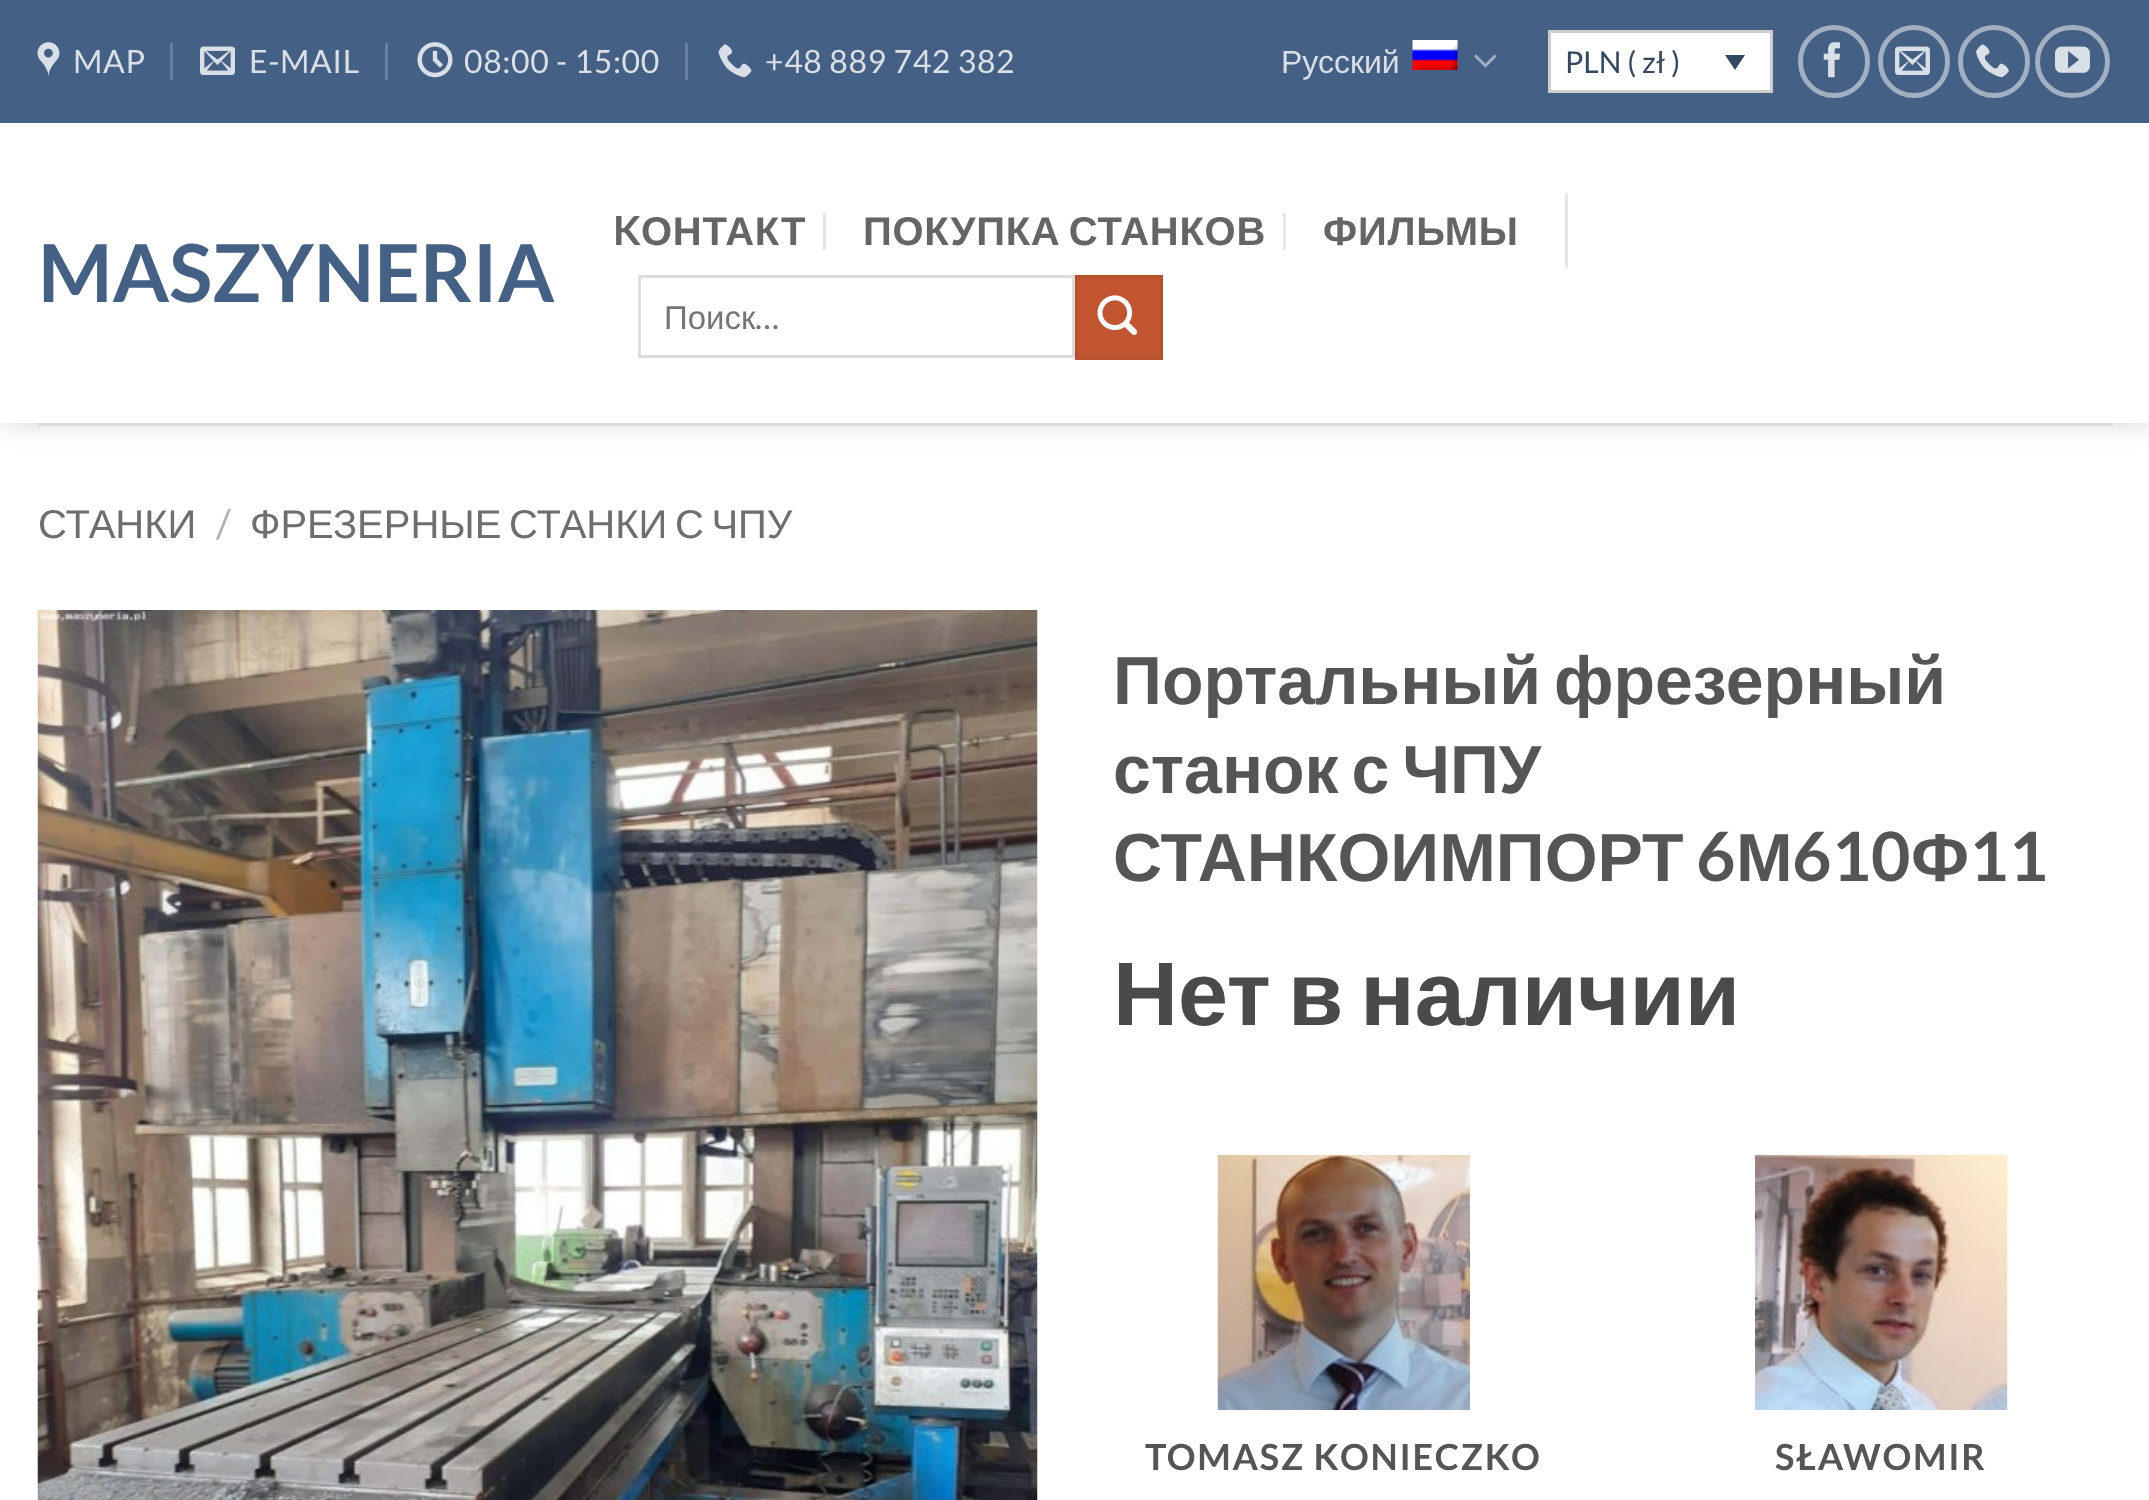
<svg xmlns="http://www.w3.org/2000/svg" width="2149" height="1500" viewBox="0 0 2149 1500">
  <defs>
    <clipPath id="clip1"><path d="M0 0H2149V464H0ZM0 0H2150V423H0Z" clip-rule="evenodd"/></clipPath>
  </defs>
  <rect width="100%" height="100%" fill="rgb(255,255,255)"/>
  <g clip-path="url(#clip1)">
    <rect x="3" y="3" width="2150" height="422" fill="rgba(0,0,0,0.15)" filter="blur(12.5px)"/>
  </g>
  <rect x="0" y="0" width="2149" height="123" fill="rgb(68,96,132)"/>
  <image x="37" y="42" width="23" height="35" href="pic1.png"/>
  <text x="73" y="73" font-family="Lato" font-size="32" letter-spacing="0.6" fill="rgb(218,223,230)">MAP</text>
  <rect x="170" y="43" width="3" height="37" fill="rgb(105,128,157)"/>
  <image x="200" y="46" width="35" height="29" href="pic2.png"/>
  <text x="249" y="73" font-family="Lato" font-size="32" letter-spacing="0.6" fill="rgb(218,223,230)">E-MAIL</text>
  <rect x="385" y="43" width="3" height="37" fill="rgb(105,128,157)"/>
  <image x="417" y="42" width="36" height="36" href="pic3.png"/>
  <text x="464" y="73" font-family="Lato" font-size="32" letter-spacing="0.6" fill="rgb(218,223,230)">08:00 - 15:00</text>
  <rect x="685" y="43" width="3" height="37" fill="rgb(105,128,157)"/>
  <image x="718" y="44" width="34" height="34" href="pic4.png"/>
  <text x="765" y="73" font-family="Lato" font-size="32" letter-spacing="0.6" fill="rgb(218,223,230)">+48 889 742 382</text>
  <text x="1281" y="73" font-family="Liberation Sans" font-size="32" fill="rgb(218,223,230)">Русский</text>
  <image x="1412" y="40" width="46" height="30" href="pic5.png"/>
  <image x="1474" y="54" width="23" height="14" href="pic6.png"/>
  <rect x="1549.5" y="31.5" width="222" height="60" fill="rgb(255,255,255)" stroke="rgb(205,205,205)" stroke-width="3"/>
  <text x="1565" y="73" font-family="Lato" font-size="30" fill="rgb(51,72,98)">PLN ( zł )</text>
  <path d="M1725 55H1745L1735 70Z" fill="rgb(51,72,98)"/>
  <rect x="1800.5" y="27.5" width="67" height="68" rx="33.5" fill="none" stroke="rgb(162,176,194)" stroke-width="5"/>
  <image x="1823" y="42" width="18" height="36" href="pic7.png"/>
  <rect x="1880.5" y="27.5" width="67" height="68" rx="33.5" fill="none" stroke="rgb(162,176,194)" stroke-width="5"/>
  <image x="1895" y="46" width="35" height="29" href="pic8.png"/>
  <rect x="1960.5" y="27.5" width="67" height="68" rx="33.5" fill="none" stroke="rgb(162,176,194)" stroke-width="5"/>
  <image x="1976" y="44" width="33" height="34" href="pic9.png"/>
  <rect x="2037.5" y="27.5" width="70" height="68" rx="34" fill="none" stroke="rgb(162,176,194)" stroke-width="5"/>
  <image x="2055" y="46" width="35" height="27" href="pic10.png"/>
  <text x="38" y="302" font-family="Lato" font-size="80" font-weight="bold" fill="rgb(68,96,132)">MASZYNERIA</text>
  <text x="613" y="245" font-family="Lato" font-size="40" font-weight="bold" letter-spacing="0.75" fill="rgb(101,101,101)">K</text>
  <text x="641" y="245" font-family="Liberation Sans" font-size="40" font-weight="bold" letter-spacing="0.75" fill="rgb(101,101,101)">ОНТАКТ</text>
  <rect x="823" y="213" width="3" height="37" fill="rgb(230,230,230)"/>
  <text x="863" y="245" word-spacing="-3.5" font-family="Liberation Sans" font-size="40" font-weight="bold" letter-spacing="0.75" fill="rgb(101,101,101)">ПОКУПКА СТАНКОВ</text>
  <rect x="1283" y="213" width="3" height="37" fill="rgb(230,230,230)"/>
  <text x="1323" y="245" font-family="Liberation Sans" font-size="40" font-weight="bold" letter-spacing="0.75" fill="rgb(101,101,101)">ФИЛЬМЫ</text>
  <rect x="1565" y="193" width="3" height="75" fill="rgb(230,230,230)"/>
  <rect x="639.5" y="276.5" width="434" height="80" fill="none" stroke="rgb(221,221,221)" stroke-width="3"/>
  <text x="664" y="329" font-family="Liberation Sans" font-size="33" fill="rgb(117,117,117)">Поиск</text>
  <text x="755" y="329" font-family="Lato" font-size="33" fill="rgb(117,117,117)">…</text>
  <rect x="1076.5" y="276.5" width="85" height="82" fill="rgb(192,85,48)" stroke="rgb(182,81,46)" stroke-width="3"/>
  <image x="1097" y="295" width="40" height="40" href="pic11.png"/>
  <rect x="38" y="423" width="2075" height="3" fill="rgb(219,219,219)"/>
  <rect x="0" y="422" width="2149" height="1" fill="rgba(255,255,255,0.9)"/>
  <text x="38" y="538" font-family="Liberation Sans" font-size="40" fill="rgb(110,110,110)">СТАНКИ</text>
  <text x="216" y="538" font-family="Lato" font-size="40" fill="rgb(178,178,178)">/</text>
  <text x="250" y="538" word-spacing="-3.5" font-family="Liberation Sans" font-size="40" fill="rgb(110,110,110)">ФРЕЗЕРНЫЕ СТАНКИ С ЧПУ</text>
  <image x="37" y="610" width="1001" height="890" href="pic12.png"/>
  <g font-family="Liberation Sans" font-size="68" font-weight="bold" fill="rgb(85,85,85)">
    <text>
      <tspan x="1113" y="704" word-spacing="-6">Портальный фрезерный</tspan>
      <tspan x="1113" y="793" word-spacing="-6">станок с ЧПУ</tspan>
      <tspan x="1113" y="881">СТАНКОИМПОРТ</tspan>
    </text>
  </g>
  <text x="1696" y="881" font-family="Lato" font-size="68" font-weight="bold" fill="rgb(85,85,85)">6</text>
  <text x="1736" y="881" font-family="Liberation Sans" font-size="68" font-weight="bold" fill="rgb(85,85,85)">М</text>
  <text x="1792" y="881" font-family="Lato" font-size="68" font-weight="bold" fill="rgb(85,85,85)">610</text>
  <text x="1911" y="881" font-family="Liberation Sans" font-size="68" font-weight="bold" fill="rgb(85,85,85)">Ф</text>
  <text x="1969" y="881" font-family="Lato" font-size="68" font-weight="bold" fill="rgb(85,85,85)">11</text>
  <text x="1113" y="1025" word-spacing="-8" font-family="Liberation Sans" font-size="90" font-weight="bold" fill="rgb(74,74,74)">Нет в наличии</text>
  <image x="1217" y="1155" width="253" height="255" href="pic13.png"/>
  <text x="1145" y="1470" font-family="Lato" font-size="36" font-weight="bold" letter-spacing="1.75" fill="rgb(85,85,85)">TOMASZ KONIECZKO</text>
  <image x="1755" y="1155" width="253" height="255" href="pic14.png"/>
  <text x="1775" y="1470" font-family="Lato" font-size="36" font-weight="bold" letter-spacing="1.75" fill="rgb(85,85,85)">SŁAWOMIR</text>
</svg>
